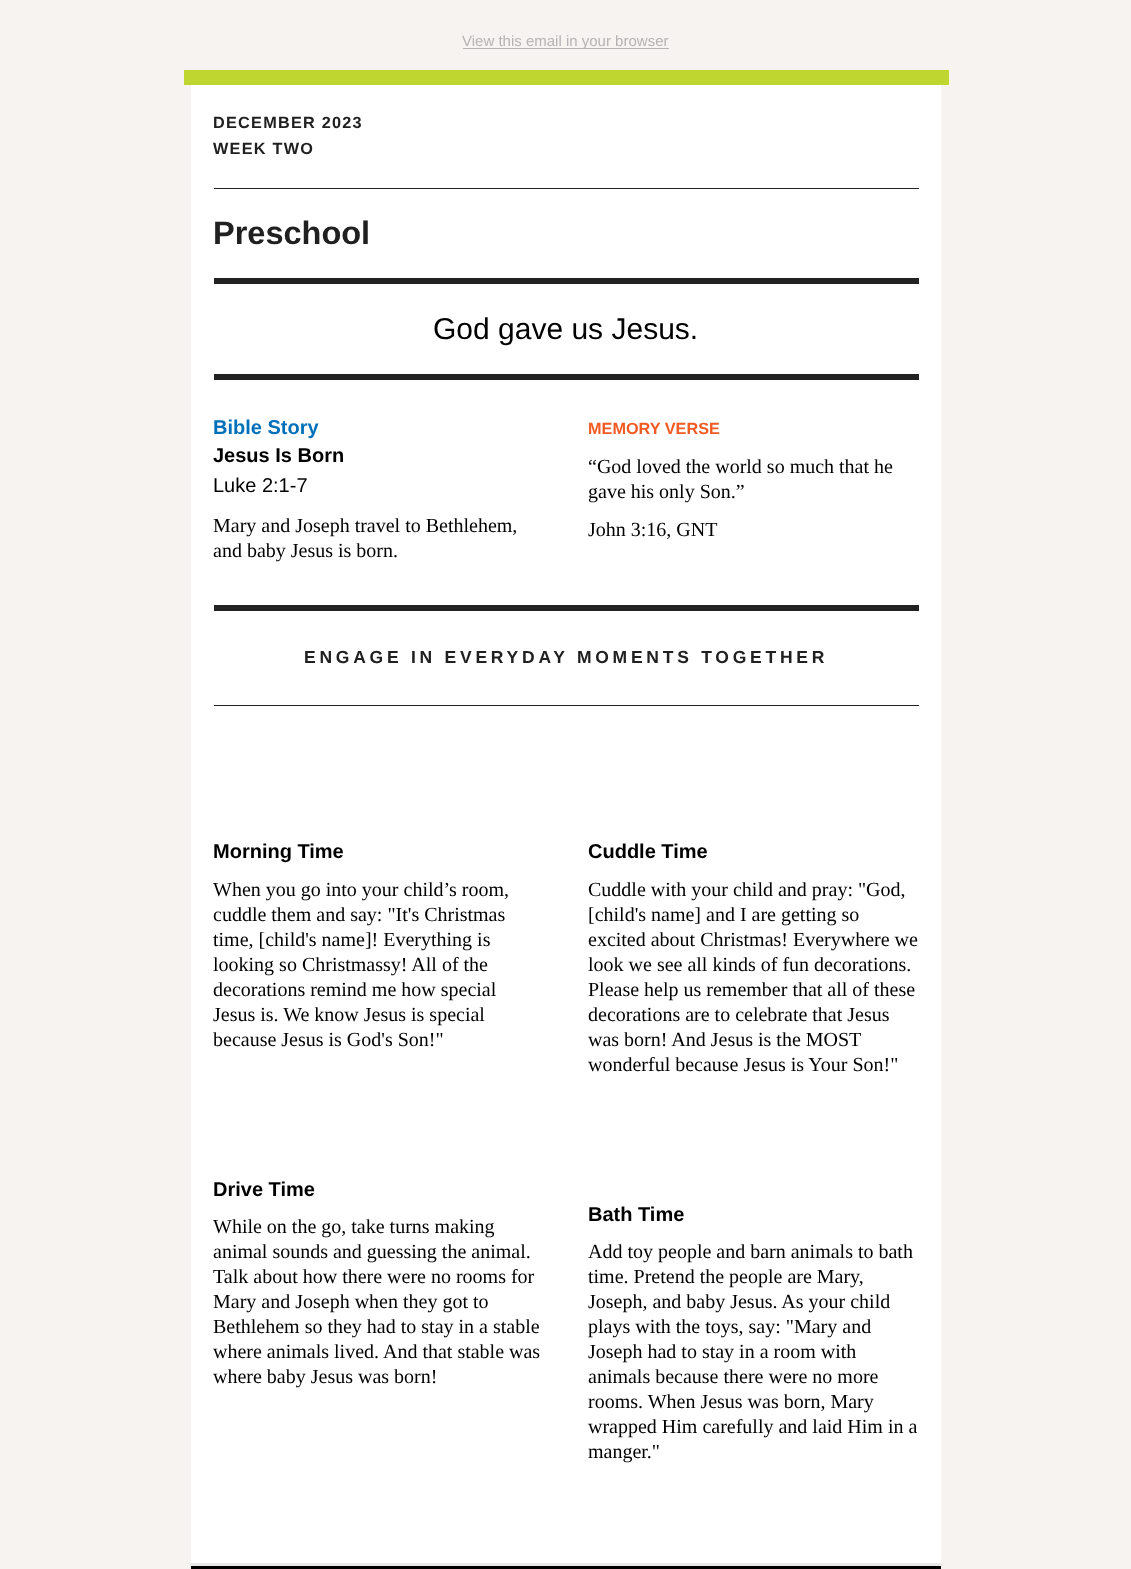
<svg xmlns="http://www.w3.org/2000/svg" width="1131" height="1569" viewBox="0 0 1131 1569">
  <rect width="100%" height="100%" fill="rgb(247,243,240)"/>
  <rect x="463" y="48" width="206" height="1" fill="rgb(180,180,180)"/>
  <text x="462" y="46" font-family="Liberation Sans" font-size="15" fill="rgb(180,180,180)">View this email in your browser</text>
  <rect x="191" y="85" width="750" height="1478" fill="rgb(255,255,255)"/>
  <rect x="184" y="70" width="765" height="15" fill="rgb(191,214,48)"/>
  <g font-family="Liberation Sans" font-size="16.25" font-weight="bold" letter-spacing="1.25" fill="rgb(32,32,32)">
    <text>
      <tspan x="213" y="128">DECEMBER 2023</tspan>
      <tspan x="213" y="154">WEEK TWO</tspan>
    </text>
  </g>
  <rect x="214" y="188" width="705" height="1" fill="rgb(34,34,34)"/>
  <text x="213" y="244" font-family="Liberation Sans" font-size="32.5" font-weight="bold" fill="rgb(32,32,32)">Preschool</text>
  <rect x="214" y="278" width="705" height="6" fill="rgb(34,34,34)"/>
  <rect x="190" y="1563" width="753" height="3" fill="rgb(234,234,234)"/>
  <text x="433" y="339" font-family="Liberation Sans" font-size="30" fill="rgb(0,0,0)">God gave us Jesus.</text>
  <rect x="214" y="374" width="705" height="6" fill="rgb(34,34,34)"/>
  <text x="213" y="434" font-family="Liberation Sans" font-size="20" font-weight="bold" fill="rgb(0,112,186)">Bible Story</text>
  <text x="213" y="462" font-family="Liberation Sans" font-size="20" font-weight="bold" fill="rgb(0,0,0)">Jesus Is Born</text>
  <text x="213" y="492" font-family="Liberation Sans" font-size="20" fill="rgb(0,0,0)">Luke 2:1-7</text>
  <g font-family="Liberation Serif" font-size="20" fill="rgb(0,0,0)">
    <text>
      <tspan x="213" y="532">Mary and Joseph travel to Bethlehem,</tspan>
      <tspan x="213" y="557">and baby Jesus is born.</tspan>
    </text>
  </g>
  <text x="588" y="434" font-family="Liberation Sans" font-size="16.25" font-weight="bold" fill="rgb(241,90,34)">MEMORY VERSE</text>
  <g font-family="Liberation Serif" font-size="20" fill="rgb(0,0,0)">
    <text>
      <tspan x="588" y="473">“God loved the world so much that he</tspan>
      <tspan x="588" y="498">gave his only Son.”</tspan>
      <tspan x="588" y="536">John 3:16, GNT</tspan>
    </text>
  </g>
  <rect x="214" y="605" width="705" height="6" fill="rgb(34,34,34)"/>
  <text x="304" y="663" font-family="Liberation Sans" font-size="17.5" font-weight="bold" letter-spacing="3.75" fill="rgb(32,32,32)">ENGAGE IN EVERYDAY MOMENTS TOGETHER</text>
  <rect x="214" y="705" width="705" height="1" fill="rgb(34,34,34)"/>
  <text x="213" y="858" font-family="Liberation Sans" font-size="20" font-weight="bold" fill="rgb(0,0,0)">Morning Time</text>
  <g font-family="Liberation Serif" font-size="20" fill="rgb(0,0,0)">
    <text>
      <tspan x="213" y="896">When you go into your child’s room,</tspan>
      <tspan x="213" y="921">cuddle them and say: "It's Christmas</tspan>
      <tspan x="213" y="946">time, [child's name]! Everything is</tspan>
      <tspan x="213" y="971">looking so Christmassy! All of the</tspan>
      <tspan x="213" y="996">decorations remind me how special</tspan>
      <tspan x="213" y="1021">Jesus is. We know Jesus is special</tspan>
      <tspan x="213" y="1046">because Jesus is God's Son!"</tspan>
    </text>
  </g>
  <text x="213" y="1196" font-family="Liberation Sans" font-size="20" font-weight="bold" fill="rgb(0,0,0)">Drive Time</text>
  <g font-family="Liberation Serif" font-size="20" fill="rgb(0,0,0)">
    <text>
      <tspan x="213" y="1233">While on the go, take turns making</tspan>
      <tspan x="213" y="1258">animal sounds and guessing the animal.</tspan>
      <tspan x="213" y="1283">Talk about how there were no rooms for</tspan>
      <tspan x="213" y="1308">Mary and Joseph when they got to</tspan>
      <tspan x="213" y="1333">Bethlehem so they had to stay in a stable</tspan>
      <tspan x="213" y="1358">where animals lived. And that stable was</tspan>
      <tspan x="213" y="1383">where baby Jesus was born!</tspan>
    </text>
  </g>
  <text x="588" y="858" font-family="Liberation Sans" font-size="20" font-weight="bold" fill="rgb(0,0,0)">Cuddle Time</text>
  <g font-family="Liberation Serif" font-size="20" fill="rgb(0,0,0)">
    <text>
      <tspan x="588" y="896">Cuddle with your child and pray: "God,</tspan>
      <tspan x="588" y="921">[child's name] and I are getting so</tspan>
      <tspan x="588" y="946">excited about Christmas! Everywhere we</tspan>
      <tspan x="588" y="971">look we see all kinds of fun decorations.</tspan>
      <tspan x="588" y="996">Please help us remember that all of these</tspan>
      <tspan x="588" y="1021">decorations are to celebrate that Jesus</tspan>
      <tspan x="588" y="1046">was born! And Jesus is the MOST</tspan>
      <tspan x="588" y="1071">wonderful because Jesus is Your Son!"</tspan>
    </text>
  </g>
  <text x="588" y="1221" font-family="Liberation Sans" font-size="20" font-weight="bold" fill="rgb(0,0,0)">Bath Time</text>
  <g font-family="Liberation Serif" font-size="20" fill="rgb(0,0,0)">
    <text>
      <tspan x="588" y="1258">Add toy people and barn animals to bath</tspan>
      <tspan x="588" y="1283">time. Pretend the people are Mary,</tspan>
      <tspan x="588" y="1308">Joseph, and baby Jesus. As your child</tspan>
      <tspan x="588" y="1333">plays with the toys, say: "Mary and</tspan>
      <tspan x="588" y="1358">Joseph had to stay in a room with</tspan>
      <tspan x="588" y="1383">animals because there were no more</tspan>
      <tspan x="588" y="1408">rooms. When Jesus was born, Mary</tspan>
      <tspan x="588" y="1433">wrapped Him carefully and laid Him in a</tspan>
      <tspan x="588" y="1458">manger."</tspan>
    </text>
  </g>
  <rect x="191" y="1566" width="750" height="3" fill="rgb(0,0,0)"/>
</svg>
